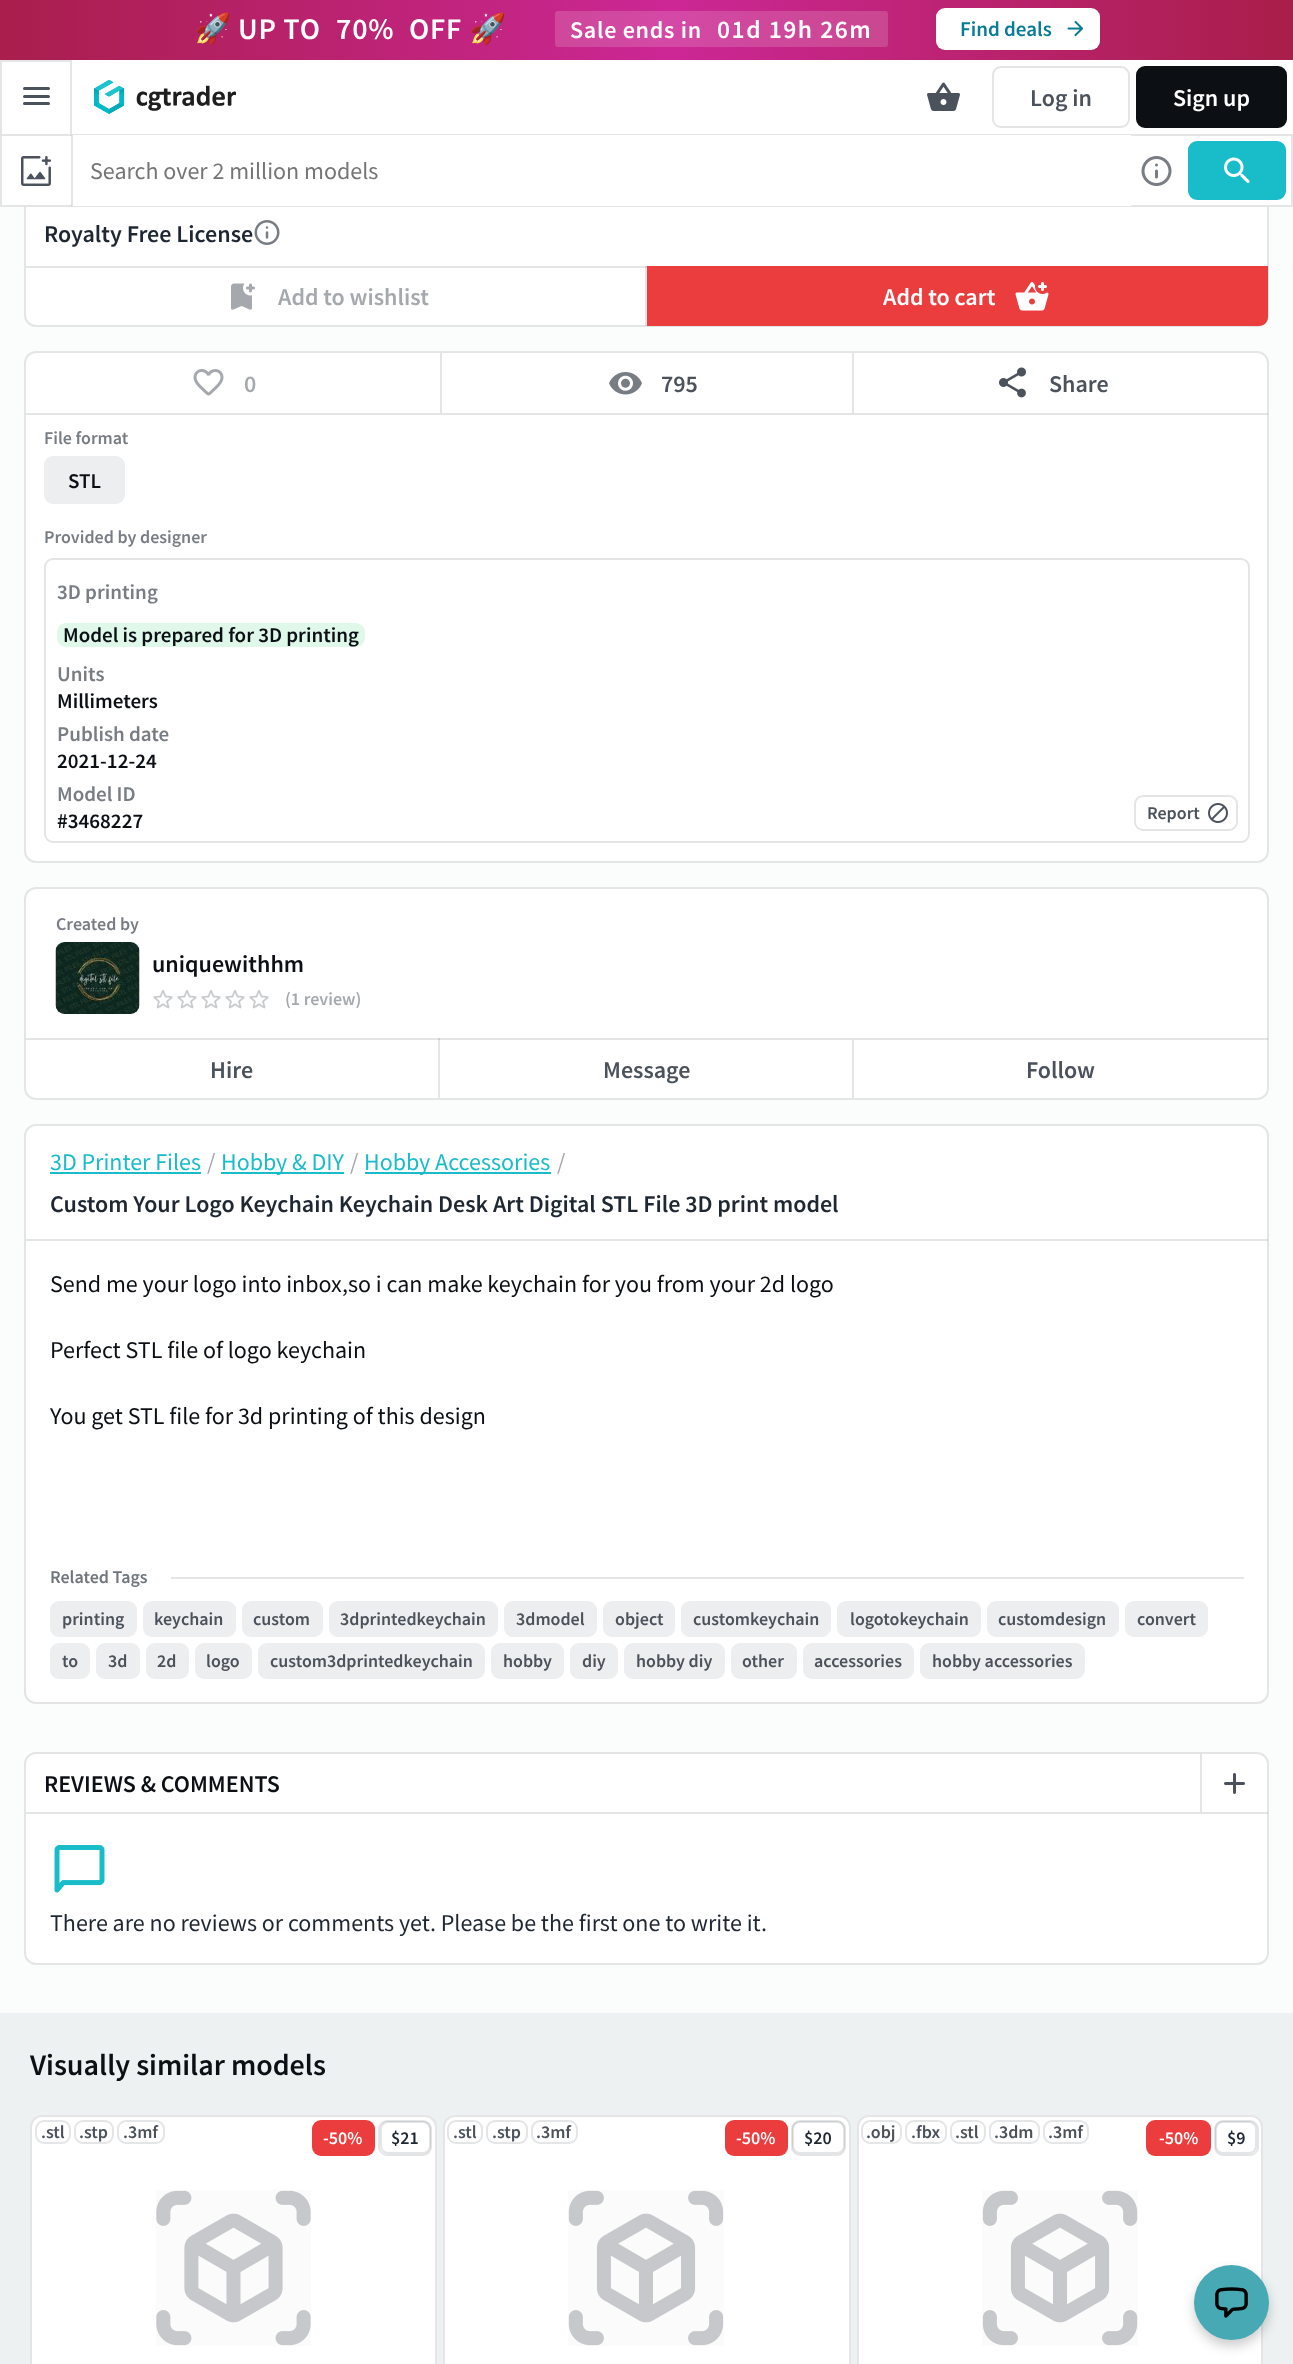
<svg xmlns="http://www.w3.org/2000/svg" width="1293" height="2364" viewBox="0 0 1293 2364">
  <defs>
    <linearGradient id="g1" gradientUnits="userSpaceOnUse" x1="0" y1="28" x2="1293" y2="29"><stop offset="0" stop-color="rgb(169,30,76)"/><stop offset="0.52" stop-color="rgb(204,39,149)"/><stop offset="1" stop-color="rgb(169,30,74)"/></linearGradient>
  </defs>
  <rect width="100%" height="100%" fill="rgb(251,252,252)"/>
  <rect x="25" y="19" width="1243" height="307" rx="11" fill="rgb(255,255,255)" stroke="rgb(228,229,230)" stroke-width="2"/>
  <rect x="0" y="60" width="1293" height="145" fill="rgb(255,255,255)"/>
  <rect x="0" y="0" width="1293" height="60" fill="url(#g1)"/>
  <text x="194" y="39" font-family="Noto Color Emoji" font-size="30" font-weight="bold" letter-spacing="0.75" fill="rgb(255,255,255)">🚀</text>
  <g font-family="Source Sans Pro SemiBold" font-size="30" font-weight="600" letter-spacing="0.75" fill="rgb(255,255,255)">
    <text x="238" y="39">UP TO</text>
    <text x="336" y="39">70%</text>
    <text x="409" y="39">OFF</text>
  </g>
  <text x="469" y="39" font-family="Noto Color Emoji" font-size="30" font-weight="bold" letter-spacing="0.75" fill="rgb(255,255,255)">🚀</text>
  <rect x="555" y="11" width="333" height="36" rx="3" fill="rgba(255,255,255,0.16)"/>
  <text x="570" y="38" font-family="Source Sans Pro SemiBold" font-size="24" font-weight="600" letter-spacing="0.75" fill="rgb(255,255,255)">Sale ends in</text>
  <text x="717" y="38" font-family="Source Sans Pro SemiBold" font-size="25.5" font-weight="600" letter-spacing="1.5" fill="rgb(255,255,255)">01d 19h 26m</text>
  <rect x="936" y="8" width="164" height="42" rx="9" fill="rgb(255,255,255)"/>
  <text x="960" y="36" font-family="Source Sans Pro SemiBold" font-size="21" font-weight="600" fill="rgb(9,123,149)">Find deals</text>
  <image x="1067" y="20" width="17" height="17" href="pic1.png"/>
  <path d="M0 60H72L70 62H2Z" fill="rgb(228,229,230)"/>
  <path d="M72 60V134H70V62Z" fill="rgba(30,39,50,0.12)"/>
  <path d="M0 134V60L2 62V134Z" fill="rgba(30,39,50,0.12)"/>
  <rect x="23" y="95" width="27" height="3" rx="1.5" fill="rgb(75,82,91)"/>
  <rect x="23" y="87" width="27" height="3" rx="1.5" fill="rgb(75,82,91)"/>
  <rect x="23" y="102" width="27" height="3" rx="1.5" fill="rgb(75,82,91)"/>
  <image x="94" y="80" width="142" height="34" href="pic2.png"/>
  <image x="927" y="82" width="33" height="29" href="pic3.png"/>
  <rect x="993" y="67" width="136" height="60" rx="8" fill="none" stroke="rgb(228,229,230)" stroke-width="2"/>
  <text x="1030" y="106" font-family="Source Sans Pro SemiBold" font-size="24" font-weight="600" fill="rgb(75,82,91)">Log in</text>
  <rect x="1137" y="67" width="149" height="60" rx="8" fill="rgb(12,16,21)" stroke="rgb(12,16,21)" stroke-width="2"/>
  <text x="1173" y="106" font-family="Source Sans Pro SemiBold" font-size="24" font-weight="600" fill="rgb(255,255,255)">Sign up</text>
  <rect x="1" y="135" width="1291" height="71" fill="none" stroke="rgb(228,229,230)" stroke-width="2"/>
  <rect x="72" y="135" width="1059" height="71" fill="rgb(255,255,255)"/>
  <rect x="71" y="135" width="2" height="71" fill="rgba(30,39,50,0.12)"/>
  <image x="21" y="156" width="30" height="30" href="pic4.png"/>
  <text x="90" y="179" font-family="Source Sans Pro" font-size="24" fill="rgb(117,117,117)">Search over 2 million models</text>
  <image x="1141" y="156" width="31" height="30" href="pic5.png"/>
  <rect x="1189" y="142" width="96" height="57" rx="8" fill="rgb(25,188,201)" stroke="rgb(25,188,201)" stroke-width="2"/>
  <image x="1224" y="157" width="26" height="26" href="pic6.png"/>
  <text x="44" y="242" font-family="Source Sans Pro SemiBold" font-size="24" font-weight="600" fill="rgb(30,39,50)">Royalty Free License</text>
  <image x="254" y="220" width="26" height="25" href="pic7.png"/>
  <rect x="26" y="266" width="621" height="2" fill="rgb(228,229,230)"/>
  <rect x="645" y="266" width="2" height="60" fill="rgba(30,39,50,0.12)"/>
  <image x="231" y="283" width="24" height="27" href="pic8.png"/>
  <text x="278" y="305" font-family="Source Sans Pro SemiBold" font-size="24" font-weight="600" fill="rgb(165,169,173)">Add to wishlist</text>
  <path d="M647 266H1268V317C1268 322 1264 326 1259 326H647Z" fill="rgb(235,61,61)"/>
  <text x="883" y="305" font-family="Source Sans Pro SemiBold" font-size="24" font-weight="600" fill="rgb(255,255,255)">Add to cart</text>
  <image x="1015" y="282" width="34" height="29" href="pic9.png"/>
  <rect x="25" y="352" width="1243" height="510" rx="11" fill="rgb(255,255,255)" stroke="rgb(228,229,230)" stroke-width="2"/>
  <rect x="26" y="413" width="1242" height="2" fill="rgba(30,39,50,0.12)"/>
  <image x="193" y="369" width="31" height="27" href="pic10.png"/>
  <text x="244" y="392" font-family="Source Sans Pro SemiBold" font-size="24" font-weight="600" fill="rgb(165,169,173)">0</text>
  <rect x="852" y="353" width="2" height="60" fill="rgb(228,229,230)"/>
  <rect x="440" y="353" width="2" height="60" fill="rgb(228,229,230)"/>
  <image x="609" y="372" width="33" height="23" href="pic11.png"/>
  <text x="661" y="392" font-family="Source Sans Pro SemiBold" font-size="24" font-weight="600" fill="rgb(75,82,91)">795</text>
  <image x="999" y="367" width="27" height="31" href="pic12.png"/>
  <text x="1049" y="392" font-family="Source Sans Pro SemiBold" font-size="24" font-weight="600" fill="rgb(75,82,91)">Share</text>
  <text x="44" y="444" font-family="Source Sans Pro SemiBold" font-size="18" font-weight="600" fill="rgb(120,125,132)">File format</text>
  <rect x="44" y="456" width="81" height="48" rx="9" fill="rgb(237,238,239)"/>
  <text x="68" y="488" font-family="Source Sans Pro SemiBold" font-size="21" font-weight="600" fill="rgb(12,16,21)">STL</text>
  <text x="44" y="543" font-family="Source Sans Pro SemiBold" font-size="18" font-weight="600" fill="rgb(120,125,132)">Provided by designer</text>
  <rect x="45" y="559" width="1204" height="283" rx="8" fill="none" stroke="rgb(228,229,230)" stroke-width="2"/>
  <text x="57" y="599" font-family="Source Sans Pro SemiBold" font-size="21" font-weight="600" fill="rgb(120,125,132)">3D printing</text>
  <rect x="57" y="623" width="308" height="24" rx="9" fill="rgb(224,248,234)"/>
  <text x="63" y="642" font-family="Source Sans Pro SemiBold" font-size="21" font-weight="600" fill="rgb(12,16,21)">Model is prepared for 3D printing</text>
  <text x="57" y="681" font-family="Source Sans Pro SemiBold" font-size="21" font-weight="600" fill="rgb(120,125,132)">Units</text>
  <text x="57" y="708" font-family="Source Sans Pro SemiBold" font-size="21" font-weight="600" fill="rgb(12,16,21)">Millimeters</text>
  <text x="57" y="741" font-family="Source Sans Pro SemiBold" font-size="21" font-weight="600" fill="rgb(120,125,132)">Publish date</text>
  <text x="57" y="768" font-family="Source Sans Pro SemiBold" font-size="21" font-weight="600" fill="rgb(12,16,21)">2021-12-24</text>
  <text x="57" y="801" font-family="Source Sans Pro SemiBold" font-size="21" font-weight="600" fill="rgb(120,125,132)">Model ID</text>
  <text x="57" y="828" font-family="Source Sans Pro SemiBold" font-size="21" font-weight="600" fill="rgb(12,16,21)">#3468227</text>
  <rect x="1135" y="796" width="102" height="34" rx="8" fill="none" stroke="rgb(228,229,230)" stroke-width="2"/>
  <text x="1147" y="819" font-family="Source Sans Pro SemiBold" font-size="18" font-weight="600" fill="rgb(75,82,91)">Report</text>
  <image x="1208" y="803" width="20" height="20" href="pic13.png"/>
  <rect x="24" y="887" width="1245" height="213" rx="12" fill="rgb(255,255,255)"/>
  <rect x="438" y="1038" width="2" height="60" fill="rgb(228,229,230)"/>
  <rect x="25" y="888" width="1243" height="211" rx="11" fill="none" stroke="rgb(228,229,230)" stroke-width="2"/>
  <text x="56" y="930" font-family="Source Sans Pro SemiBold" font-size="18" font-weight="600" fill="rgb(120,125,132)">Created by</text>
  <image x="55" y="942" width="85" height="72" href="pic14.png"/>
  <text x="152" y="972" font-family="Source Sans Pro SemiBold" font-size="24" font-weight="600" fill="rgb(12,16,21)">uniquewithhm</text>
  <image x="153" y="990" width="20" height="19" href="pic15.png"/>
  <image x="177" y="990" width="20" height="19" href="pic15.png"/>
  <image x="201" y="990" width="20" height="19" href="pic15.png"/>
  <image x="225" y="990" width="20" height="19" href="pic15.png"/>
  <image x="249" y="990" width="20" height="19" href="pic15.png"/>
  <text x="285" y="1005" font-family="Source Sans Pro SemiBold" font-size="18" font-weight="600" fill="rgb(165,169,173)">(1 review)</text>
  <rect x="26" y="1038" width="414" height="2" fill="rgb(228,229,230)"/>
  <rect x="438" y="1038" width="2" height="2" fill="rgb(204,206,208)"/>
  <text x="210" y="1078" font-family="Source Sans Pro SemiBold" font-size="24" font-weight="600" fill="rgb(75,82,91)">Hire</text>
  <path d="M440 1038H854L852 1040H440Z" fill="rgb(228,229,230)"/>
  <path d="M854 1038V1098H852V1040Z" fill="rgba(30,39,50,0.12)"/>
  <text x="603" y="1078" font-family="Source Sans Pro SemiBold" font-size="24" font-weight="600" fill="rgb(75,82,91)">Message</text>
  <rect x="854" y="1038" width="414" height="2" fill="rgba(30,39,50,0.12)"/>
  <text x="1026" y="1078" font-family="Source Sans Pro SemiBold" font-size="24" font-weight="600" fill="rgb(75,82,91)">Follow</text>
  <rect x="25" y="1125" width="1243" height="578" rx="11" fill="rgb(255,255,255)" stroke="rgb(228,229,230)" stroke-width="2"/>
  <rect x="26" y="1239" width="1242" height="2" fill="rgba(30,39,50,0.12)"/>
  <text x="50" y="1170" font-family="Source Sans Pro" font-size="24" fill="rgb(25,188,201)">3D Printer Files</text>
  <rect x="50" y="1172" width="151" height="2" fill="rgb(25,188,201)"/>
  <text x="207" y="1170" font-family="Source Sans Pro" font-size="24" fill="rgb(165,169,173)">/</text>
  <rect x="221" y="1172" width="123" height="2" fill="rgb(25,188,201)"/>
  <text x="221" y="1170" font-family="Source Sans Pro" font-size="24" fill="rgb(25,188,201)">Hobby &amp; DIY</text>
  <text x="350" y="1170" font-family="Source Sans Pro" font-size="24" fill="rgb(165,169,173)">/</text>
  <rect x="365" y="1172" width="186" height="2" fill="rgb(25,188,201)"/>
  <text x="364" y="1170" font-family="Source Sans Pro" font-size="24" fill="rgb(25,188,201)">Hobby Accessories</text>
  <text x="557" y="1170" font-family="Source Sans Pro" font-size="24" fill="rgb(165,169,173)">/</text>
  <text x="50" y="1212" font-family="Source Sans Pro SemiBold" font-size="24" font-weight="600" fill="rgb(30,39,50)">Custom Your Logo Keychain Keychain Desk Art Digital STL File 3D print model</text>
  <g font-family="Source Sans Pro" font-size="24" fill="rgb(12,16,21)">
    <text x="50" y="1292">Send me your logo into inbox,so i can make keychain for you from your 2d logo</text>
    <text x="50" y="1358">Perfect STL file of logo keychain</text>
    <text x="50" y="1424">You get STL file for 3d printing of this design</text>
  </g>
  <text x="50" y="1583" font-family="Source Sans Pro SemiBold" font-size="18" font-weight="600" fill="rgb(111,117,124)">Related Tags</text>
  <rect x="171" y="1577" width="1073" height="2" fill="rgb(228,229,230)"/>
  <rect x="50" y="1601" width="87" height="36" rx="9" fill="rgb(237,238,239)"/>
  <text x="62" y="1625" font-family="Source Sans Pro SemiBold" font-size="18" font-weight="600" fill="rgb(75,82,91)">printing</text>
  <rect x="143" y="1601" width="93" height="36" rx="9" fill="rgb(237,238,239)"/>
  <text x="154" y="1625" font-family="Source Sans Pro SemiBold" font-size="18" font-weight="600" fill="rgb(75,82,91)">keychain</text>
  <rect x="242" y="1601" width="81" height="36" rx="9" fill="rgb(237,238,239)"/>
  <text x="253" y="1625" font-family="Source Sans Pro SemiBold" font-size="18" font-weight="600" fill="rgb(75,82,91)">custom</text>
  <rect x="329" y="1601" width="169" height="36" rx="9" fill="rgb(237,238,239)"/>
  <text x="340" y="1625" font-family="Source Sans Pro SemiBold" font-size="18" font-weight="600" fill="rgb(75,82,91)">3dprintedkeychain</text>
  <rect x="504" y="1601" width="93" height="36" rx="9" fill="rgb(237,238,239)"/>
  <text x="516" y="1625" font-family="Source Sans Pro SemiBold" font-size="18" font-weight="600" fill="rgb(75,82,91)">3dmodel</text>
  <rect x="603" y="1601" width="72" height="36" rx="9" fill="rgb(237,238,239)"/>
  <text x="615" y="1625" font-family="Source Sans Pro SemiBold" font-size="18" font-weight="600" fill="rgb(75,82,91)">object</text>
  <rect x="681" y="1601" width="150" height="36" rx="9" fill="rgb(237,238,239)"/>
  <text x="693" y="1625" font-family="Source Sans Pro SemiBold" font-size="18" font-weight="600" fill="rgb(75,82,91)">customkeychain</text>
  <rect x="837" y="1601" width="144" height="36" rx="9" fill="rgb(237,238,239)"/>
  <text x="850" y="1625" font-family="Source Sans Pro SemiBold" font-size="18" font-weight="600" fill="rgb(75,82,91)">logotokeychain</text>
  <rect x="987" y="1601" width="132" height="36" rx="9" fill="rgb(237,238,239)"/>
  <text x="998" y="1625" font-family="Source Sans Pro SemiBold" font-size="18" font-weight="600" fill="rgb(75,82,91)">customdesign</text>
  <rect x="1125" y="1601" width="83" height="36" rx="9" fill="rgb(237,238,239)"/>
  <text x="1137" y="1625" font-family="Source Sans Pro SemiBold" font-size="18" font-weight="600" fill="rgb(75,82,91)">convert</text>
  <rect x="50" y="1643" width="40" height="36" rx="9" fill="rgb(237,238,239)"/>
  <text x="62" y="1667" font-family="Source Sans Pro SemiBold" font-size="18" font-weight="600" fill="rgb(75,82,91)">to</text>
  <rect x="96" y="1643" width="44" height="36" rx="9" fill="rgb(237,238,239)"/>
  <text x="108" y="1667" font-family="Source Sans Pro SemiBold" font-size="18" font-weight="600" fill="rgb(75,82,91)">3d</text>
  <rect x="146" y="1643" width="43" height="36" rx="9" fill="rgb(237,238,239)"/>
  <text x="157" y="1667" font-family="Source Sans Pro SemiBold" font-size="18" font-weight="600" fill="rgb(75,82,91)">2d</text>
  <rect x="195" y="1643" width="57" height="36" rx="9" fill="rgb(237,238,239)"/>
  <text x="206" y="1667" font-family="Source Sans Pro SemiBold" font-size="18" font-weight="600" fill="rgb(75,82,91)">logo</text>
  <rect x="258" y="1643" width="227" height="36" rx="9" fill="rgb(237,238,239)"/>
  <text x="270" y="1667" font-family="Source Sans Pro SemiBold" font-size="18" font-weight="600" fill="rgb(75,82,91)">custom3dprintedkeychain</text>
  <rect x="491" y="1643" width="73" height="36" rx="9" fill="rgb(237,238,239)"/>
  <text x="503" y="1667" font-family="Source Sans Pro SemiBold" font-size="18" font-weight="600" fill="rgb(75,82,91)">hobby</text>
  <rect x="570" y="1643" width="48" height="36" rx="9" fill="rgb(237,238,239)"/>
  <text x="582" y="1667" font-family="Source Sans Pro SemiBold" font-size="18" font-weight="600" fill="rgb(75,82,91)">diy</text>
  <rect x="624" y="1643" width="101" height="36" rx="9" fill="rgb(237,238,239)"/>
  <text x="636" y="1667" font-family="Source Sans Pro SemiBold" font-size="18" font-weight="600" fill="rgb(75,82,91)">hobby diy</text>
  <rect x="731" y="1643" width="66" height="36" rx="9" fill="rgb(237,238,239)"/>
  <text x="742" y="1667" font-family="Source Sans Pro SemiBold" font-size="18" font-weight="600" fill="rgb(75,82,91)">other</text>
  <rect x="803" y="1643" width="111" height="36" rx="9" fill="rgb(237,238,239)"/>
  <text x="814" y="1667" font-family="Source Sans Pro SemiBold" font-size="18" font-weight="600" fill="rgb(75,82,91)">accessories</text>
  <rect x="920" y="1643" width="165" height="36" rx="9" fill="rgb(237,238,239)"/>
  <text x="932" y="1667" font-family="Source Sans Pro SemiBold" font-size="18" font-weight="600" fill="rgb(75,82,91)">hobby accessories</text>
  <rect x="25" y="1753" width="1243" height="211" rx="11" fill="rgb(255,255,255)" stroke="rgb(228,229,230)" stroke-width="2"/>
  <rect x="26" y="1812" width="1242" height="2" fill="rgba(30,39,50,0.12)"/>
  <text x="44" y="1792" font-family="Source Sans Pro SemiBold" font-size="24" font-weight="600" fill="rgb(12,16,21)">REVIEWS &amp; COMMENTS</text>
  <rect x="1200" y="1754" width="2" height="58" fill="rgb(228,229,230)"/>
  <image x="1224" y="1773" width="21" height="21" href="pic16.png"/>
  <image x="54" y="1845" width="51" height="48" href="pic17.png"/>
  <text x="50" y="1931" font-family="Source Sans Pro" font-size="24" fill="rgb(30,39,50)">There are no reviews or comments yet. Please be the first one to write it.</text>
  <rect x="0" y="2013" width="1293" height="351" fill="rgb(237,241,241)"/>
  <text x="30" y="2075" font-family="Source Sans Pro SemiBold" font-size="30" font-weight="600" fill="rgb(12,16,21)">Visually similar models</text>
  <rect x="30" y="2115" width="407" height="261" rx="12" fill="rgb(255,255,255)"/>
  <rect x="31" y="2116" width="405" height="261" rx="11" fill="none" stroke="rgba(30,39,50,0.12)" stroke-width="2"/>
  <rect x="36" y="2121" width="34" height="22" rx="8" fill="none" stroke="rgb(228,229,230)" stroke-width="2"/>
  <text x="41" y="2138" font-family="Source Sans Pro SemiBold" font-size="18" font-weight="600" fill="rgb(75,82,91)">.stl</text>
  <rect x="75" y="2121" width="38" height="22" rx="8" fill="none" stroke="rgb(228,229,230)" stroke-width="2"/>
  <text x="79" y="2138" font-family="Source Sans Pro SemiBold" font-size="18" font-weight="600" fill="rgb(75,82,91)">.stp</text>
  <rect x="118" y="2121" width="46" height="22" rx="8" fill="none" stroke="rgb(228,229,230)" stroke-width="2"/>
  <text x="123" y="2138" font-family="Source Sans Pro SemiBold" font-size="18" font-weight="600" fill="rgb(75,82,91)">.3mf</text>
  <rect x="312" y="2120" width="63" height="36" rx="9" fill="rgb(235,61,61)"/>
  <text x="323" y="2144" font-family="Source Sans Pro SemiBold" font-size="18" font-weight="600" fill="rgb(255,255,255)">-50%</text>
  <rect x="381" y="2122" width="49" height="31" rx="7" fill="none" stroke="rgb(228,229,230)" stroke-width="2"/>
  <rect x="379" y="2121" width="52" height="34" rx="8" fill="none" stroke="rgba(30,39,50,0.12)" stroke-width="2"/>
  <text x="391" y="2144" font-family="Source Sans Pro SemiBold" font-size="18" font-weight="600" fill="rgb(30,39,50)">$21</text>
  <image x="156" y="2190" width="155" height="156" href="pic18.png"/>
  <rect x="443" y="2115" width="408" height="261" rx="12" fill="rgb(255,255,255)"/>
  <rect x="444" y="2116" width="406" height="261" rx="11" fill="none" stroke="rgba(30,39,50,0.12)" stroke-width="2"/>
  <rect x="448" y="2121" width="34" height="22" rx="8" fill="none" stroke="rgb(228,229,230)" stroke-width="2"/>
  <text x="453" y="2138" font-family="Source Sans Pro SemiBold" font-size="18" font-weight="600" fill="rgb(75,82,91)">.stl</text>
  <rect x="487" y="2121" width="40" height="22" rx="8" fill="none" stroke="rgb(228,229,230)" stroke-width="2"/>
  <text x="492" y="2138" font-family="Source Sans Pro SemiBold" font-size="18" font-weight="600" fill="rgb(75,82,91)">.stp</text>
  <rect x="532" y="2121" width="45" height="22" rx="8" fill="none" stroke="rgb(228,229,230)" stroke-width="2"/>
  <text x="536" y="2138" font-family="Source Sans Pro SemiBold" font-size="18" font-weight="600" fill="rgb(75,82,91)">.3mf</text>
  <rect x="725" y="2120" width="63" height="36" rx="9" fill="rgb(235,61,61)"/>
  <text x="736" y="2144" font-family="Source Sans Pro SemiBold" font-size="18" font-weight="600" fill="rgb(255,255,255)">-50%</text>
  <rect x="793" y="2122" width="51" height="31" rx="7" fill="none" stroke="rgb(228,229,230)" stroke-width="2"/>
  <rect x="792" y="2121" width="53" height="34" rx="8" fill="none" stroke="rgba(30,39,50,0.12)" stroke-width="2"/>
  <text x="804" y="2144" font-family="Source Sans Pro SemiBold" font-size="18" font-weight="600" fill="rgb(30,39,50)">$20</text>
  <image x="568" y="2190" width="156" height="156" href="pic19.png"/>
  <rect x="857" y="2115" width="406" height="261" rx="12" fill="rgb(255,255,255)"/>
  <rect x="858" y="2116" width="404" height="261" rx="11" fill="none" stroke="rgba(30,39,50,0.12)" stroke-width="2"/>
  <rect x="862" y="2121" width="39" height="22" rx="8" fill="none" stroke="rgb(228,229,230)" stroke-width="2"/>
  <text x="866" y="2138" font-family="Source Sans Pro SemiBold" font-size="18" font-weight="600" fill="rgb(75,82,91)">.obj</text>
  <rect x="906" y="2121" width="40" height="22" rx="8" fill="none" stroke="rgb(228,229,230)" stroke-width="2"/>
  <text x="911" y="2138" font-family="Source Sans Pro SemiBold" font-size="18" font-weight="600" fill="rgb(75,82,91)">.fbx</text>
  <rect x="951" y="2121" width="34" height="22" rx="8" fill="none" stroke="rgb(228,229,230)" stroke-width="2"/>
  <text x="955" y="2138" font-family="Source Sans Pro SemiBold" font-size="18" font-weight="600" fill="rgb(75,82,91)">.stl</text>
  <rect x="990" y="2121" width="49" height="22" rx="8" fill="none" stroke="rgb(228,229,230)" stroke-width="2"/>
  <text x="994" y="2138" font-family="Source Sans Pro SemiBold" font-size="18" font-weight="600" fill="rgb(75,82,91)">.3dm</text>
  <rect x="1044" y="2121" width="44" height="22" rx="8" fill="none" stroke="rgb(228,229,230)" stroke-width="2"/>
  <text x="1048" y="2138" font-family="Source Sans Pro SemiBold" font-size="18" font-weight="600" fill="rgb(75,82,91)">.3mf</text>
  <rect x="1146" y="2120" width="65" height="36" rx="9" fill="rgb(235,61,61)"/>
  <text x="1159" y="2144" font-family="Source Sans Pro SemiBold" font-size="18" font-weight="600" fill="rgb(255,255,255)">-50%</text>
  <rect x="1216" y="2122" width="40" height="31" rx="7" fill="none" stroke="rgb(228,229,230)" stroke-width="2"/>
  <rect x="1215" y="2121" width="43" height="34" rx="8" fill="none" stroke="rgba(30,39,50,0.12)" stroke-width="2"/>
  <text x="1227" y="2144" font-family="Source Sans Pro SemiBold" font-size="18" font-weight="600" fill="rgb(30,39,50)">$9</text>
  <image x="982" y="2190" width="156" height="156" href="pic20.png"/>
  <rect x="1194" y="2271" width="75" height="75" rx="37.5" fill="rgba(0,0,0,0.2)" filter="blur(6px)"/>
  <circle cx="1231.5" cy="2302.5" r="37.5" fill="rgb(70,169,180)"/>
  <image x="1215" y="2287" width="33" height="31" href="pic21.png"/>
</svg>
